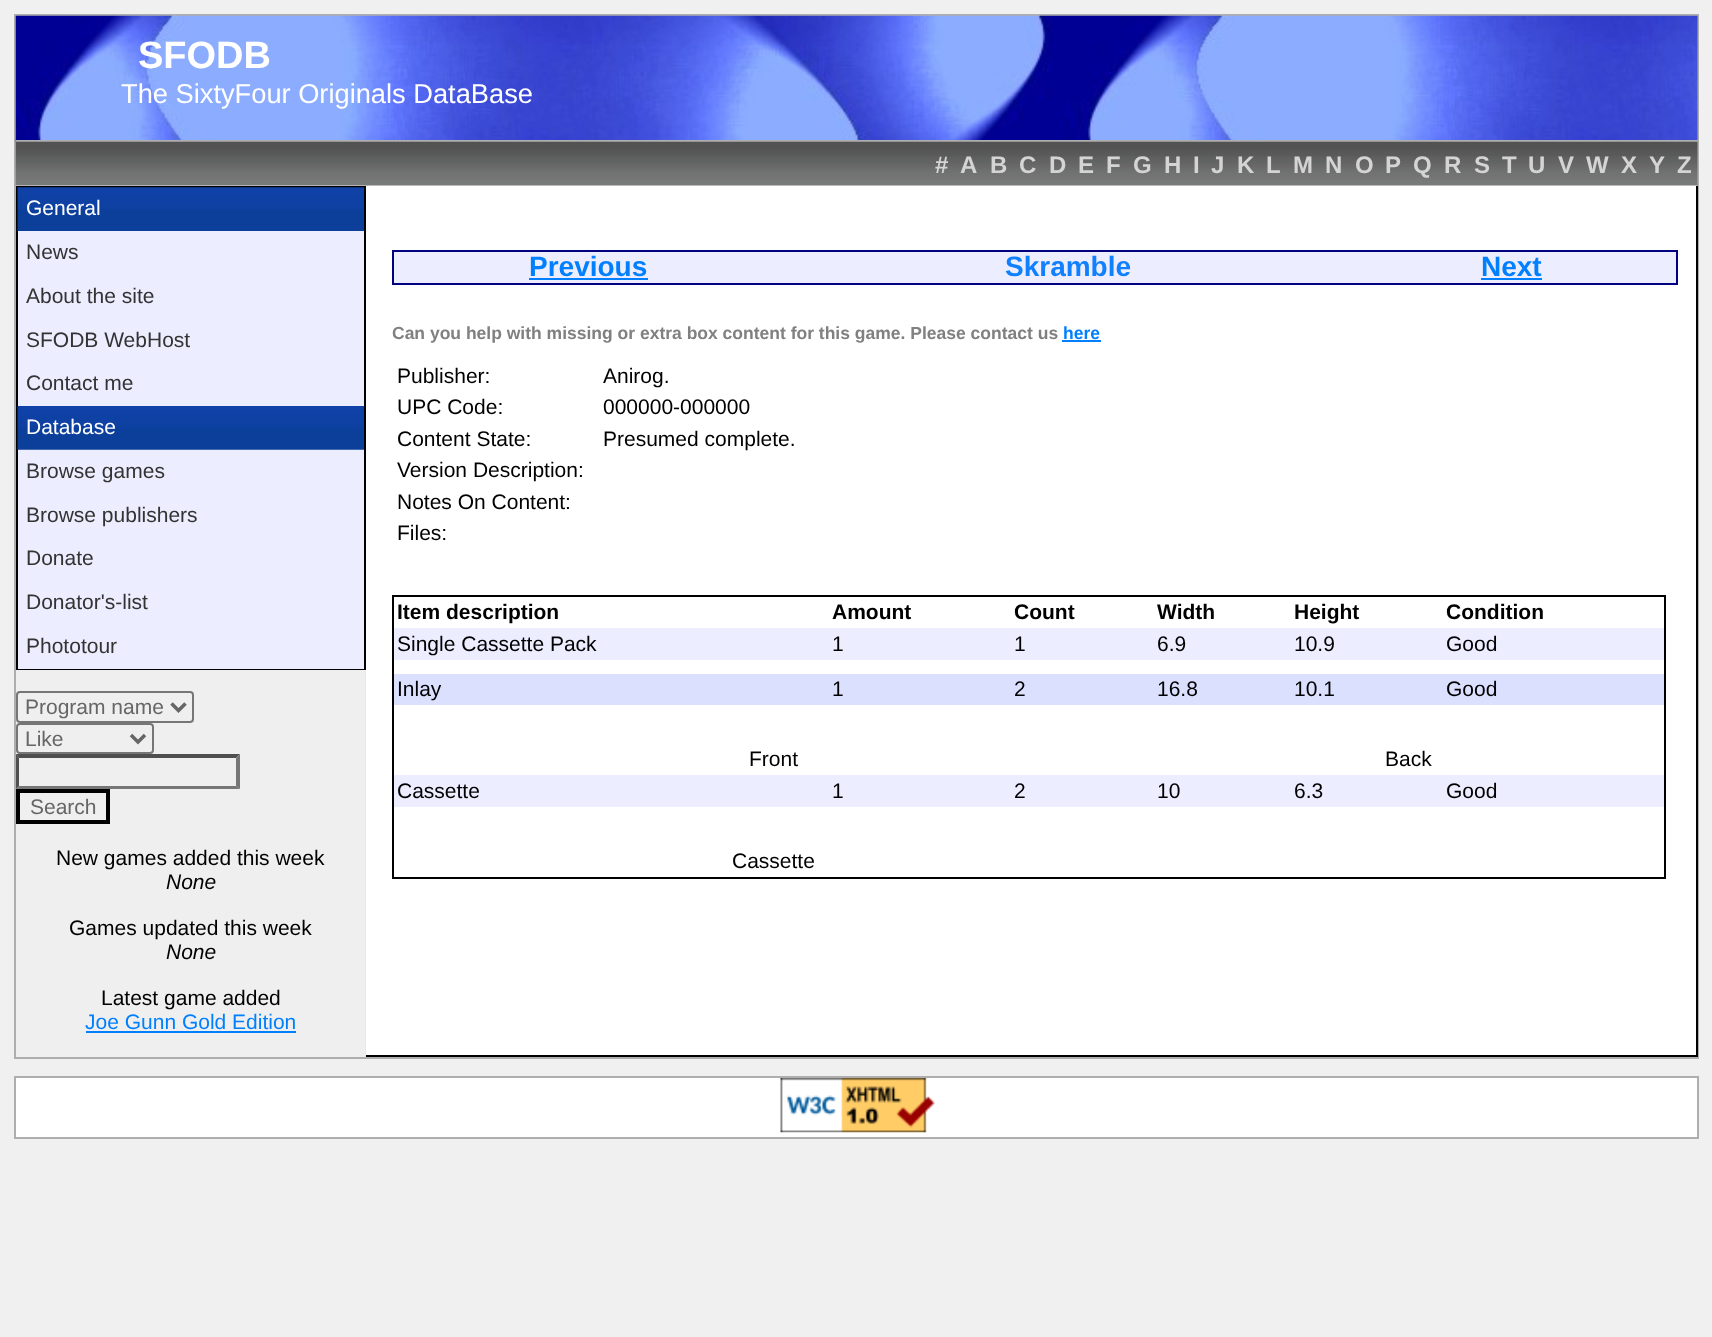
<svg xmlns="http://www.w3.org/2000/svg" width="1712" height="1337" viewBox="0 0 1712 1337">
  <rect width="100%" height="100%" fill="rgb(240,240,240)"/>
  <rect x="367" y="185" width="1330" height="1" fill="rgb(255,255,255)"/>
  <image x="16" y="185" width="352" height="872" href="pic1.png"/>
  <rect x="15" y="15" width="1683" height="1043" fill="none" stroke="rgb(174,174,174)" stroke-width="2"/>
  <image x="15" y="15" width="1683" height="127" href="pic2.png"/>
  <rect x="16" y="140" width="1682" height="2" fill="rgb(174,174,174)"/>
  <text x="138" y="68" font-family="Liberation Sans" font-size="38" font-weight="bold" fill="rgb(255,255,255)">SFODB</text>
  <text x="121" y="103" font-family="Liberation Sans" font-size="27.25" fill="rgb(255,255,255)">The SixtyFour Originals DataBase</text>
  <image x="15" y="141" width="1683" height="45" href="pic3.png"/>
  <g font-family="Liberation Sans" font-size="24" font-weight="bold" fill="rgb(212,212,212)">
    <text x="935" y="173">#</text>
    <text x="960" y="173">A</text>
    <text x="990" y="173">B</text>
    <text x="1019" y="173">C</text>
    <text x="1049" y="173">D</text>
    <text x="1078" y="173">E</text>
    <text x="1106" y="173">F</text>
    <text x="1133" y="173">G</text>
    <text x="1164" y="173">H</text>
    <text x="1193" y="173">I</text>
    <text x="1211" y="173">J</text>
    <text x="1237" y="173">K</text>
    <text x="1266" y="173">L</text>
    <text x="1293" y="173">M</text>
    <text x="1325" y="173">N</text>
    <text x="1355" y="173">O</text>
    <text x="1385" y="173">P</text>
    <text x="1413" y="173">Q</text>
    <text x="1444" y="173">R</text>
    <text x="1474" y="173">S</text>
    <text x="1502" y="173">T</text>
    <text x="1528" y="173">U</text>
    <text x="1558" y="173">V</text>
    <text x="1586" y="173">W</text>
    <text x="1621" y="173">X</text>
    <text x="1649" y="173">Y</text>
    <text x="1677" y="173">Z</text>
  </g>
  <rect x="17" y="187" width="348" height="482" fill="none" stroke="rgb(0,0,0)" stroke-width="2"/>
  <image x="17" y="187" width="347" height="44" href="pic4.png"/>
  <text x="26" y="215" font-family="Liberation Sans" font-size="21" fill="rgb(255,255,255)">General</text>
  <rect x="18" y="231" width="346" height="175" fill="rgb(236,237,255)"/>
  <g font-family="Liberation Sans" font-size="21" fill="rgb(51,51,51)">
    <text x="26" y="259">News</text>
    <text x="26" y="303">About the site</text>
    <text x="26" y="347">SFODB WebHost</text>
    <text x="26" y="390">Contact me</text>
  </g>
  <image x="17" y="406" width="347" height="44" href="pic5.png"/>
  <text x="26" y="434" font-family="Liberation Sans" font-size="21" fill="rgb(255,255,255)">Database</text>
  <rect x="18" y="450" width="346" height="219" fill="rgb(236,237,255)"/>
  <g font-family="Liberation Sans" font-size="21" fill="rgb(51,51,51)">
    <text x="26" y="478">Browse games</text>
    <text x="26" y="522">Browse publishers</text>
    <text x="26" y="565">Donate</text>
    <text x="26" y="609">Donator's-list</text>
    <text x="26" y="653">Phototour</text>
  </g>
  <rect x="17" y="692" width="176" height="30" rx="3" fill="none" stroke="rgb(118,118,118)" stroke-width="2"/>
  <path d="M171.5 703.5L178.5 710.5L185.5 703.5" fill="none" stroke="rgb(102,102,102)" stroke-width="3.5"/>
  <text x="25" y="714" font-family="Liberation Sans" font-size="21" fill="rgb(102,102,102)">Program name</text>
  <rect x="17" y="724" width="136" height="29" rx="3" fill="none" stroke="rgb(118,118,118)" stroke-width="2"/>
  <path d="M131 735L138 742L145 735" fill="none" stroke="rgb(102,102,102)" stroke-width="3.5"/>
  <text x="25" y="746" font-family="Liberation Sans" font-size="21" fill="rgb(102,102,102)">Like</text>
  <path d="M16 754H240L236 758H19Z" fill="rgb(79,79,79)"/>
  <path d="M240 754V789L236 786V758Z" fill="rgb(118,118,118)"/>
  <path d="M240 789H16L19 786H236Z" fill="rgb(118,118,118)"/>
  <path d="M16 789V754L19 758V786Z" fill="rgb(79,79,79)"/>
  <rect x="18" y="791" width="90" height="31" fill="none" stroke="rgb(0,0,0)" stroke-width="4"/>
  <text x="30" y="814" font-family="Liberation Sans" font-size="21" fill="rgb(102,102,102)">Search</text>
  <text x="56" y="865" font-family="Liberation Sans" font-size="21" fill="rgb(0,0,0)">New games added this week</text>
  <text x="166" y="889" font-family="Liberation Sans" font-size="21" font-style="italic" fill="rgb(0,0,0)">None</text>
  <text x="69" y="935" font-family="Liberation Sans" font-size="21" fill="rgb(0,0,0)">Games updated this week</text>
  <text x="166" y="959" font-family="Liberation Sans" font-size="21" font-style="italic" fill="rgb(0,0,0)">None</text>
  <text x="101" y="1005" font-family="Liberation Sans" font-size="21" fill="rgb(0,0,0)">Latest game added</text>
  <text x="85" y="1029" font-family="Liberation Sans" font-size="21" fill="rgb(0,128,255)">Joe Gunn Gold Edition</text>
  <rect x="86" y="1031" width="210" height="2" fill="rgb(0,128,255)"/>
  <rect x="366" y="186" width="1330" height="869" fill="rgb(255,255,255)"/>
  <rect x="1696" y="186" width="2" height="871" fill="rgb(0,0,0)"/>
  <rect x="366" y="1055" width="1332" height="2" fill="rgb(0,0,0)"/>
  <rect x="393" y="251" width="1284" height="33" fill="rgb(236,237,255)" stroke="rgb(0,0,128)" stroke-width="2"/>
  <text x="529" y="276" font-family="Liberation Sans" font-size="28" font-weight="bold" fill="rgb(0,128,255)">Previous</text>
  <rect x="529" y="278" width="119" height="2" fill="rgb(0,128,255)"/>
  <text x="1005" y="276" font-family="Liberation Sans" font-size="28" font-weight="bold" fill="rgb(16,128,255)">Skramble</text>
  <text x="1481" y="276" font-family="Liberation Sans" font-size="28" font-weight="bold" fill="rgb(0,128,255)">Next</text>
  <rect x="1481" y="278" width="61" height="2" fill="rgb(0,128,255)"/>
  <text x="392" y="339" font-family="Liberation Sans" font-size="17.5" font-weight="bold" fill="rgb(128,128,128)">Can you help with missing or extra box content for this game. Please contact us</text>
  <text x="1063" y="339" font-family="Liberation Sans" font-size="17.5" font-weight="bold" fill="rgb(0,128,255)">here</text>
  <rect x="1062" y="340" width="39" height="2" fill="rgb(0,128,255)"/>
  <g font-family="Liberation Sans" font-size="21" fill="rgb(0,0,0)">
    <text x="397" y="383">Publisher:</text>
    <text x="603" y="383">Anirog.</text>
    <text x="397" y="414">UPC Code:</text>
    <text x="603" y="414">000000-000000</text>
    <text x="397" y="446">Content State:</text>
    <text x="603" y="446">Presumed complete.</text>
    <text>
      <tspan x="397" y="477">Version Description:</tspan>
      <tspan x="397" y="509">Notes On Content:</tspan>
      <tspan x="397" y="540">Files:</tspan>
    </text>
  </g>
  <rect x="393" y="596" width="1272" height="282" fill="none" stroke="rgb(0,0,0)" stroke-width="2"/>
  <g font-family="Liberation Sans" font-size="21" font-weight="bold" fill="rgb(0,0,0)">
    <text x="397" y="619">Item description</text>
    <text x="832" y="619">Amount</text>
    <text x="1014" y="619">Count</text>
    <text x="1157" y="619">Width</text>
    <text x="1294" y="619">Height</text>
    <text x="1446" y="619">Condition</text>
  </g>
  <rect x="394" y="628" width="1270" height="32" fill="rgb(236,237,255)"/>
  <g font-family="Liberation Sans" font-size="21" fill="rgb(0,0,0)">
    <text x="397" y="651">Single Cassette Pack</text>
    <text x="832" y="651">1</text>
    <text x="1014" y="651">1</text>
    <text x="1157" y="651">6.9</text>
    <text x="1294" y="651">10.9</text>
    <text x="1446" y="651">Good</text>
  </g>
  <rect x="394" y="674" width="1270" height="31" fill="rgb(220,224,255)"/>
  <g font-family="Liberation Sans" font-size="21" fill="rgb(0,0,0)">
    <text x="397" y="696">Inlay</text>
    <text x="832" y="696">1</text>
    <text x="1014" y="696">2</text>
    <text x="1157" y="696">16.8</text>
    <text x="1294" y="696">10.1</text>
    <text x="1446" y="696">Good</text>
    <text x="749" y="766">Front</text>
    <text x="1385" y="766">Back</text>
  </g>
  <rect x="394" y="775" width="1270" height="32" fill="rgb(236,237,255)"/>
  <g font-family="Liberation Sans" font-size="21" fill="rgb(0,0,0)">
    <text x="397" y="798">Cassette</text>
    <text x="832" y="798">1</text>
    <text x="1014" y="798">2</text>
    <text x="1157" y="798">10</text>
    <text x="1294" y="798">6.3</text>
    <text x="1446" y="798">Good</text>
    <text x="732" y="868">Cassette</text>
  </g>
  <rect x="15" y="1077" width="1683" height="61" fill="rgb(255,255,255)" stroke="rgb(174,174,174)" stroke-width="2"/>
  <image x="780" y="1078" width="155" height="55" href="pic6.png"/>
</svg>
